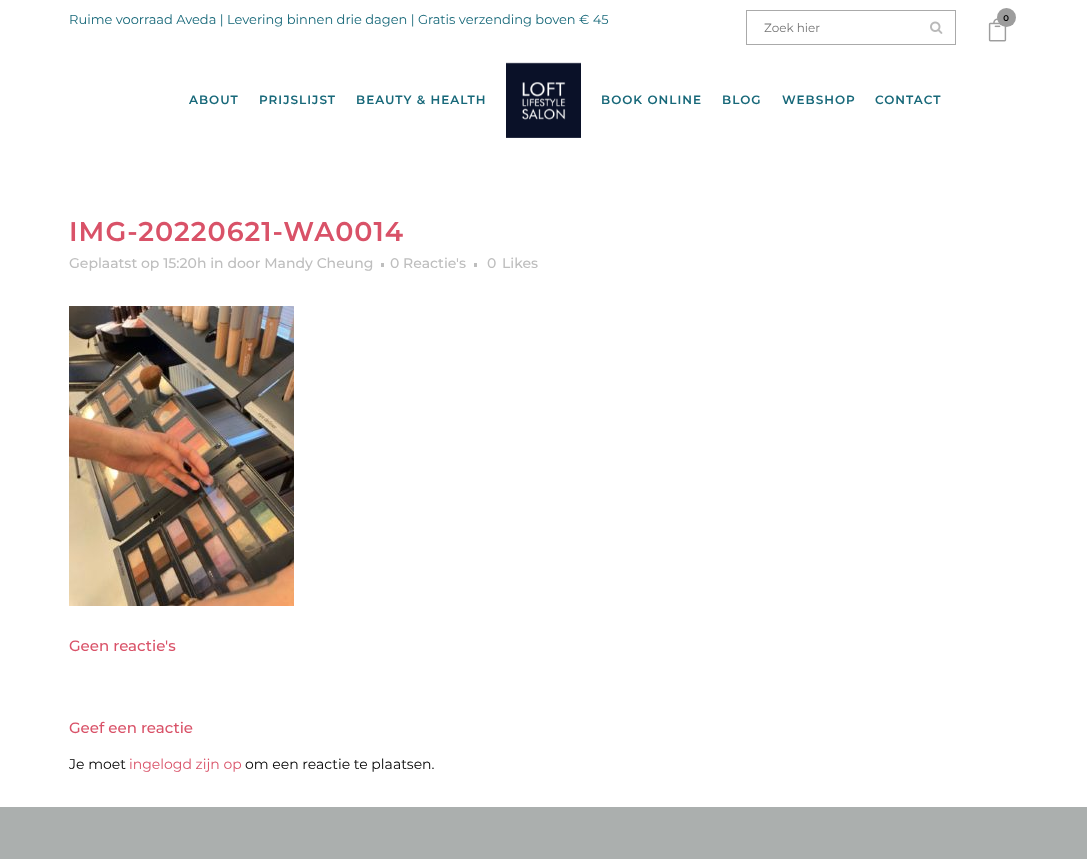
<svg xmlns="http://www.w3.org/2000/svg" width="1087" height="859" viewBox="0 0 1087 859">
  <rect width="100%" height="100%" fill="rgb(255,255,255)"/>
  <text x="69" y="24" font-family="Montserrat" font-size="13" fill="rgb(23,104,121)">Ruime voorraad Aveda | Levering binnen drie dagen | Gratis verzending boven € 45</text>
  <image x="988" y="18" width="19" height="24" href="pic1.png"/>
  <circle cx="1006.5" cy="17.5" r="9.5" fill="rgb(157,157,157)"/>
  <text x="1003" y="21" font-family="Raleway" font-size="10" font-weight="600" fill="rgb(0,0,0)">0</text>
  <rect x="746.5" y="10.5" width="209" height="34" fill="none" stroke="rgb(170,170,170)"/>
  <text x="764" y="32" font-family="Montserrat" font-size="12" fill="rgb(117,117,117)">Zoek hier</text>
  <image x="930" y="21" width="13" height="13" href="pic2.png"/>
  <g font-family="Montserrat" font-size="12" font-weight="600" letter-spacing="1" fill="rgb(23,104,121)">
    <text x="189" y="104">ABOUT</text>
    <text x="259" y="104">PRIJSLIJST</text>
    <text x="356" y="104">BEAUTY &amp; HEALTH</text>
  </g>
  <image x="506" y="62" width="75" height="76" href="pic3.png"/>
  <g font-family="Montserrat" font-size="12" font-weight="600" letter-spacing="1" fill="rgb(23,104,121)">
    <text x="601" y="104">BOOK ONLINE</text>
    <text x="722" y="104">BLOG</text>
    <text x="782" y="104">WEBSHOP</text>
    <text x="875" y="104">CONTACT</text>
  </g>
  <text x="69" y="241" font-family="Montserrat" font-size="27" font-weight="600" letter-spacing="1" fill="rgb(217,82,104)">IMG-20220621-WA0014</text>
  <text x="69" y="268" font-family="Montserrat" font-size="14" font-weight="500" fill="rgb(190,190,190)">Geplaatst op 15:20h in door Mandy Cheung</text>
  <rect x="381" y="263" width="3" height="4" fill="rgb(190,190,190)"/>
  <text x="390" y="268" font-family="Montserrat" font-size="14" font-weight="500" fill="rgb(190,190,190)">0 Reactie's</text>
  <rect x="474" y="263" width="3" height="4" fill="rgb(190,190,190)"/>
  <g font-family="Montserrat" font-size="14" font-weight="500" fill="rgb(190,190,190)">
    <text x="487" y="268">0</text>
    <text x="502" y="268">Likes</text>
  </g>
  <image x="69" y="306" width="225" height="300" href="pic4.png"/>
  <g font-family="Montserrat" font-size="15" font-weight="500" fill="rgb(217,82,104)">
    <text x="69" y="651">Geen reactie's</text>
    <text x="69" y="733">Geef een reactie</text>
  </g>
  <text x="69" y="769" font-family="Montserrat" font-size="14" fill="rgb(0,0,0)">Je moet</text>
  <text x="129" y="769" font-family="Montserrat" font-size="14" fill="rgb(217,82,104)">ingelogd zijn op</text>
  <text x="245" y="769" font-family="Montserrat" font-size="14" fill="rgb(0,0,0)">om een reactie te plaatsen.</text>
  <rect x="0" y="807" width="1087" height="52" fill="rgb(171,175,174)"/>
</svg>
